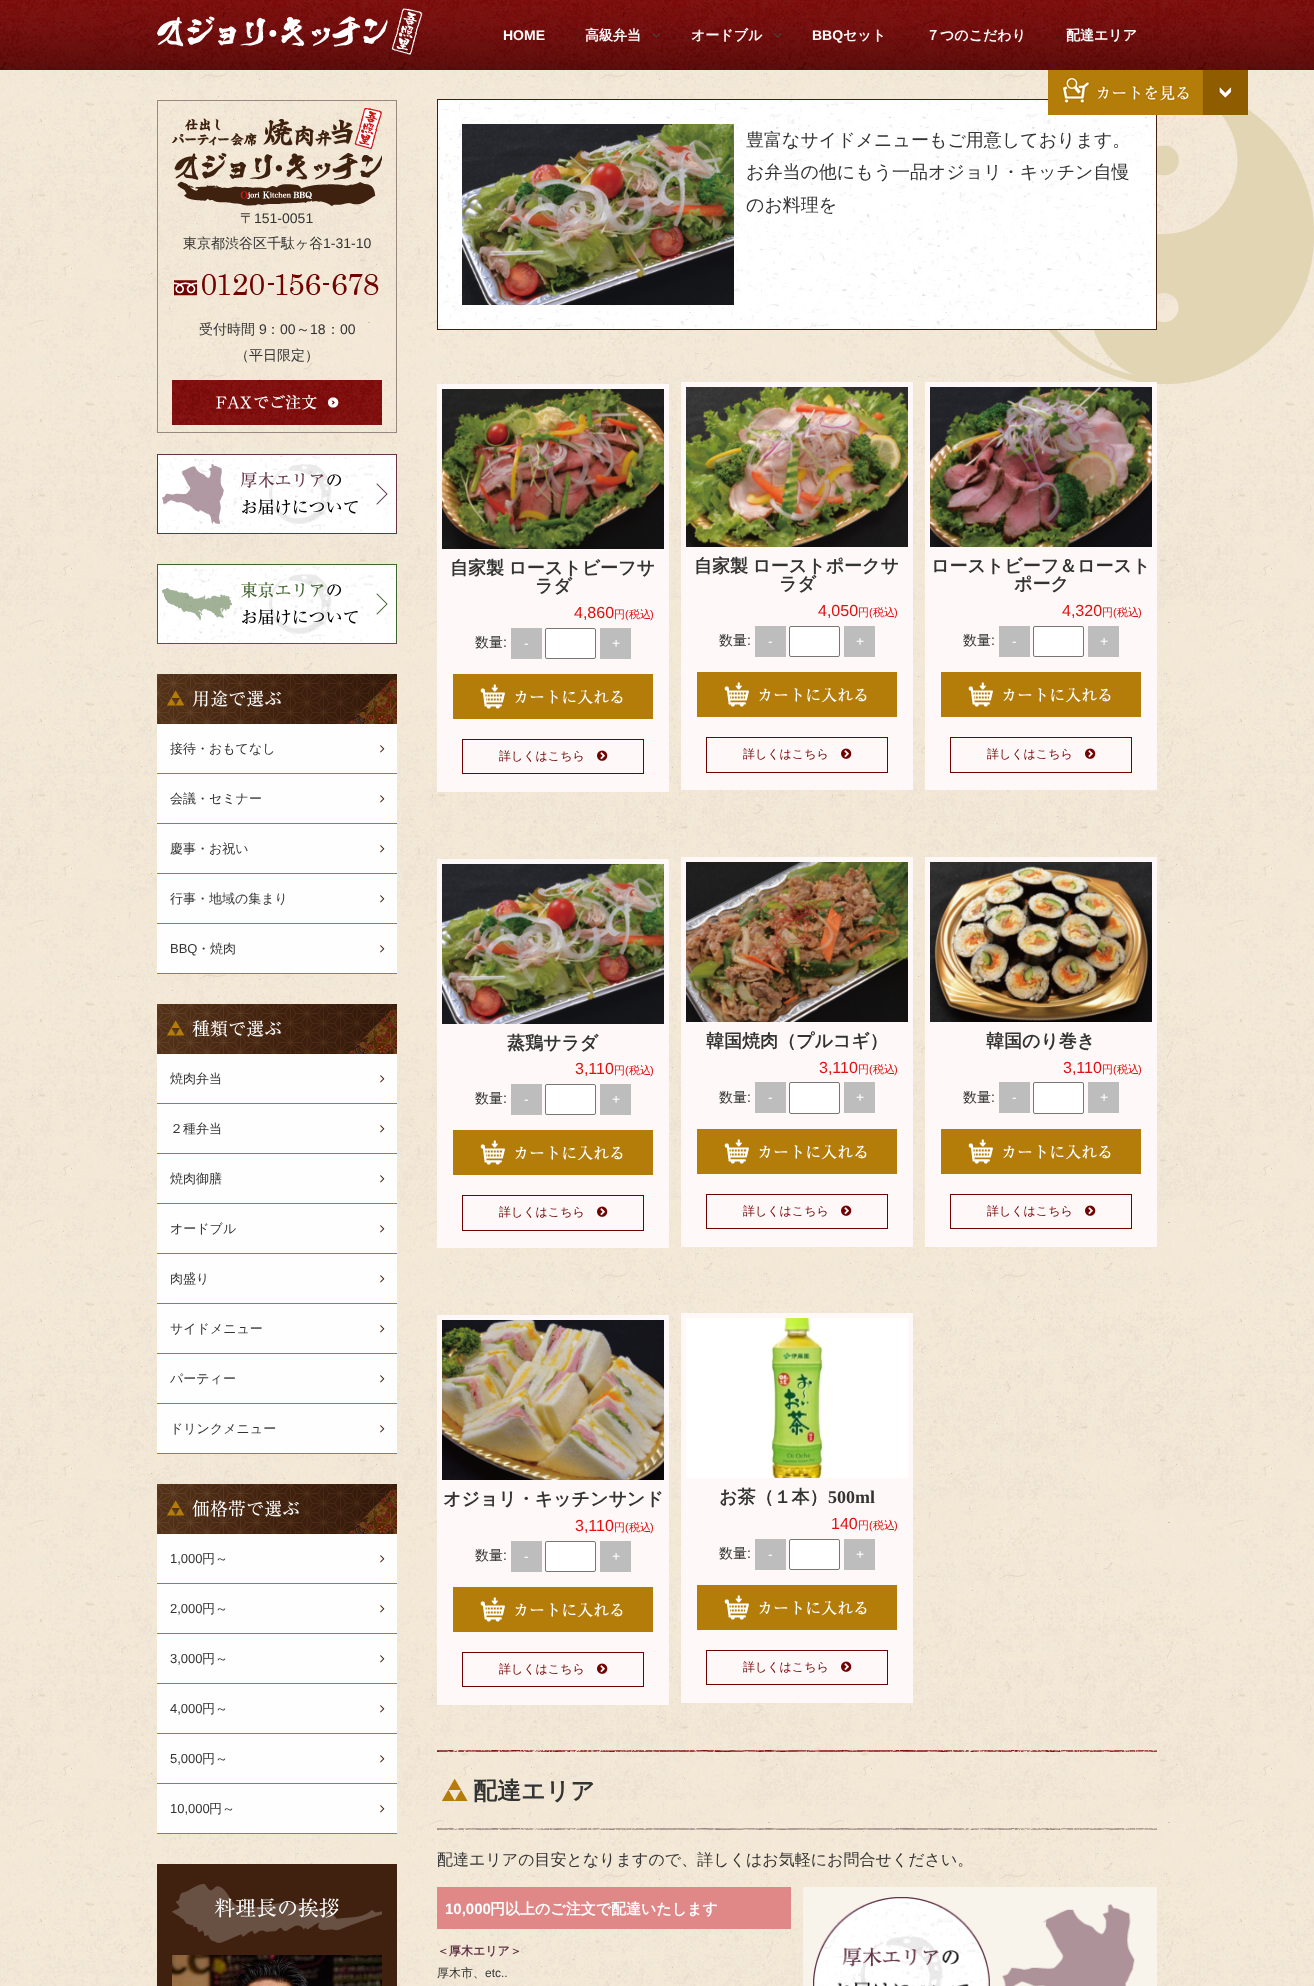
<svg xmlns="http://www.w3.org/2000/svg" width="1314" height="1986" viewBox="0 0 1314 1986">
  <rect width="100%" height="100%" fill="rgb(255,255,255)"/>
  <image x="0" y="70" width="1314" height="1916" href="pic1.png"/>
  <image x="0" y="0" width="1314" height="70" href="pic2.png"/>
  <image x="157" y="8" width="266" height="47" href="pic3.png"/>
  <text x="503" y="40" font-family="Liberation Sans" font-size="14" font-weight="bold" fill="rgb(255,255,255)">HOME</text>
  <text x="585" y="40" font-family="WenQuanYi Zen Hei" font-size="14" font-weight="bold" fill="rgb(255,255,255)">高級弁当</text>
  <image x="652" y="33" width="9" height="5" href="pic4.png"/>
  <text x="691" y="40" font-family="WenQuanYi Zen Hei" font-size="14" font-weight="bold" fill="rgb(255,255,255)">オードブル</text>
  <image x="773" y="33" width="9" height="5" href="pic5.png"/>
  <text x="812" y="40" font-family="Liberation Sans" font-size="14" font-weight="bold" fill="rgb(255,255,255)">BBQ</text>
  <g font-family="WenQuanYi Zen Hei" font-size="14" font-weight="bold" fill="rgb(255,255,255)">
    <text x="843" y="40">セット</text>
    <text x="926" y="40">７つのこだわり</text>
    <text x="1066" y="40">配達エリア</text>
  </g>
  <image x="1048" y="109" width="266" height="275" href="pic6.png"/>
  <rect x="157.5" y="100.5" width="239" height="332" fill="none" stroke="rgb(153,136,128)"/>
  <image x="172" y="108" width="210" height="98" href="pic7.png"/>
  <text x="240" y="223" font-family="WenQuanYi Zen Hei" font-size="14" font-weight="500" fill="rgb(51,51,51)">〒</text>
  <text x="254" y="223" font-family="Liberation Sans" font-size="14" fill="rgb(51,51,51)">151-0051</text>
  <text x="183" y="248" font-family="WenQuanYi Zen Hei" font-size="14" font-weight="500" fill="rgb(51,51,51)">東京都渋谷区千駄ヶ谷</text>
  <text x="323" y="248" font-family="Liberation Sans" font-size="14" fill="rgb(51,51,51)">1-31-10</text>
  <image x="174" y="274" width="205" height="22" href="pic8.png"/>
  <text x="199" y="334" font-family="WenQuanYi Zen Hei" font-size="14" font-weight="500" fill="rgb(51,51,51)">受付時間</text>
  <text x="259" y="334" font-family="Liberation Sans" font-size="14" fill="rgb(51,51,51)">9</text>
  <text x="266" y="334" font-family="WenQuanYi Zen Hei" font-size="14" font-weight="500" fill="rgb(51,51,51)">：</text>
  <text x="280" y="334" font-family="Liberation Sans" font-size="14" fill="rgb(51,51,51)">00</text>
  <text x="296" y="334" font-family="WenQuanYi Zen Hei" font-size="14" font-weight="500" fill="rgb(51,51,51)">～</text>
  <text x="310" y="334" font-family="Liberation Sans" font-size="14" fill="rgb(51,51,51)">18</text>
  <text x="326" y="334" font-family="WenQuanYi Zen Hei" font-size="14" font-weight="500" fill="rgb(51,51,51)">：</text>
  <text x="340" y="334" font-family="Liberation Sans" font-size="14" fill="rgb(51,51,51)">00</text>
  <text x="235" y="360" font-family="WenQuanYi Zen Hei" font-size="14" font-weight="500" fill="rgb(51,51,51)">（平日限定）</text>
  <image x="172" y="380" width="210" height="45" href="pic9.png"/>
  <image x="157" y="454" width="240" height="80" href="pic10.png"/>
  <image x="157" y="564" width="240" height="80" href="pic11.png"/>
  <image x="157" y="674" width="240" height="50" href="pic12.png"/>
  <rect x="157" y="724" width="240" height="249" fill="rgb(254,254,254)"/>
  <rect x="157" y="773" width="240" height="1" fill="rgb(180,124,9)"/>
  <text x="170" y="753" font-family="WenQuanYi Zen Hei" font-size="13" font-weight="500" fill="rgb(51,51,51)">接待・おもてなし</text>
  <image x="380" y="745" width="5" height="8" href="pic13.png"/>
  <rect x="157" y="823" width="240" height="1" fill="rgb(180,124,9)"/>
  <text x="170" y="803" font-family="WenQuanYi Zen Hei" font-size="13" font-weight="500" fill="rgb(51,51,51)">会議・セミナー</text>
  <image x="380" y="795" width="5" height="8" href="pic13.png"/>
  <rect x="157" y="873" width="240" height="1" fill="rgb(180,124,9)"/>
  <text x="170" y="853" font-family="WenQuanYi Zen Hei" font-size="13" font-weight="500" fill="rgb(51,51,51)">慶事・お祝い</text>
  <image x="380" y="845" width="5" height="8" href="pic13.png"/>
  <rect x="157" y="923" width="240" height="1" fill="rgb(180,124,9)"/>
  <text x="170" y="903" font-family="WenQuanYi Zen Hei" font-size="13" font-weight="500" fill="rgb(51,51,51)">行事・地域の集まり</text>
  <image x="380" y="895" width="5" height="8" href="pic13.png"/>
  <rect x="157" y="973" width="240" height="1" fill="rgb(180,124,9)"/>
  <text x="170" y="953" font-family="Liberation Sans" font-size="13" fill="rgb(51,51,51)">BBQ</text>
  <text x="197" y="953" font-family="WenQuanYi Zen Hei" font-size="13" font-weight="500" fill="rgb(51,51,51)">・焼肉</text>
  <image x="380" y="945" width="5" height="8" href="pic13.png"/>
  <image x="157" y="1004" width="240" height="50" href="pic14.png"/>
  <rect x="157" y="1054" width="240" height="399" fill="rgb(254,254,254)"/>
  <rect x="157" y="1103" width="240" height="1" fill="rgb(180,124,9)"/>
  <text x="170" y="1083" font-family="WenQuanYi Zen Hei" font-size="13" font-weight="500" fill="rgb(51,51,51)">焼肉弁当</text>
  <image x="380" y="1075" width="5" height="8" href="pic13.png"/>
  <rect x="157" y="1153" width="240" height="1" fill="rgb(180,124,9)"/>
  <text x="170" y="1133" font-family="WenQuanYi Zen Hei" font-size="13" font-weight="500" fill="rgb(51,51,51)">２種弁当</text>
  <image x="380" y="1125" width="5" height="8" href="pic13.png"/>
  <rect x="157" y="1203" width="240" height="1" fill="rgb(180,124,9)"/>
  <text x="170" y="1183" font-family="WenQuanYi Zen Hei" font-size="13" font-weight="500" fill="rgb(51,51,51)">焼肉御膳</text>
  <image x="380" y="1175" width="5" height="8" href="pic13.png"/>
  <rect x="157" y="1253" width="240" height="1" fill="rgb(180,124,9)"/>
  <text x="170" y="1233" font-family="WenQuanYi Zen Hei" font-size="13" font-weight="500" fill="rgb(51,51,51)">オードブル</text>
  <image x="380" y="1225" width="5" height="8" href="pic13.png"/>
  <rect x="157" y="1303" width="240" height="1" fill="rgb(180,124,9)"/>
  <text x="170" y="1283" font-family="WenQuanYi Zen Hei" font-size="13" font-weight="500" fill="rgb(51,51,51)">肉盛り</text>
  <image x="380" y="1275" width="5" height="8" href="pic13.png"/>
  <rect x="157" y="1353" width="240" height="1" fill="rgb(180,124,9)"/>
  <text x="170" y="1333" font-family="WenQuanYi Zen Hei" font-size="13" font-weight="500" fill="rgb(51,51,51)">サイドメニュー</text>
  <image x="380" y="1325" width="5" height="8" href="pic13.png"/>
  <rect x="157" y="1403" width="240" height="1" fill="rgb(180,124,9)"/>
  <text x="170" y="1383" font-family="WenQuanYi Zen Hei" font-size="13" font-weight="500" fill="rgb(51,51,51)">パーティー</text>
  <image x="380" y="1375" width="5" height="8" href="pic13.png"/>
  <rect x="157" y="1453" width="240" height="1" fill="rgb(180,124,9)"/>
  <text x="170" y="1433" font-family="WenQuanYi Zen Hei" font-size="13" font-weight="500" fill="rgb(51,51,51)">ドリンクメニュー</text>
  <image x="380" y="1425" width="5" height="8" href="pic13.png"/>
  <image x="157" y="1484" width="240" height="50" href="pic15.png"/>
  <rect x="157" y="1534" width="240" height="299" fill="rgb(254,254,254)"/>
  <rect x="157" y="1583" width="240" height="1" fill="rgb(180,124,9)"/>
  <text x="170" y="1563" font-family="Liberation Sans" font-size="13" fill="rgb(51,51,51)">1,000</text>
  <text x="202" y="1563" font-family="WenQuanYi Zen Hei" font-size="13" font-weight="500" fill="rgb(51,51,51)">円～</text>
  <image x="380" y="1555" width="5" height="8" href="pic13.png"/>
  <rect x="157" y="1633" width="240" height="1" fill="rgb(180,124,9)"/>
  <text x="170" y="1613" font-family="Liberation Sans" font-size="13" fill="rgb(51,51,51)">2,000</text>
  <text x="202" y="1613" font-family="WenQuanYi Zen Hei" font-size="13" font-weight="500" fill="rgb(51,51,51)">円～</text>
  <image x="380" y="1605" width="5" height="8" href="pic13.png"/>
  <rect x="157" y="1683" width="240" height="1" fill="rgb(180,124,9)"/>
  <text x="170" y="1663" font-family="Liberation Sans" font-size="13" fill="rgb(51,51,51)">3,000</text>
  <text x="202" y="1663" font-family="WenQuanYi Zen Hei" font-size="13" font-weight="500" fill="rgb(51,51,51)">円～</text>
  <image x="380" y="1655" width="5" height="8" href="pic13.png"/>
  <rect x="157" y="1733" width="240" height="1" fill="rgb(180,124,9)"/>
  <text x="170" y="1713" font-family="Liberation Sans" font-size="13" fill="rgb(51,51,51)">4,000</text>
  <text x="202" y="1713" font-family="WenQuanYi Zen Hei" font-size="13" font-weight="500" fill="rgb(51,51,51)">円～</text>
  <image x="380" y="1705" width="5" height="8" href="pic13.png"/>
  <rect x="157" y="1783" width="240" height="1" fill="rgb(180,124,9)"/>
  <text x="170" y="1763" font-family="Liberation Sans" font-size="13" fill="rgb(51,51,51)">5,000</text>
  <text x="202" y="1763" font-family="WenQuanYi Zen Hei" font-size="13" font-weight="500" fill="rgb(51,51,51)">円～</text>
  <image x="380" y="1755" width="5" height="8" href="pic13.png"/>
  <rect x="157" y="1833" width="240" height="1" fill="rgb(180,124,9)"/>
  <text x="170" y="1813" font-family="Liberation Sans" font-size="13" fill="rgb(51,51,51)">10,000</text>
  <text x="209" y="1813" font-family="WenQuanYi Zen Hei" font-size="13" font-weight="500" fill="rgb(51,51,51)">円～</text>
  <image x="380" y="1805" width="5" height="8" href="pic13.png"/>
  <rect x="157" y="1864" width="240" height="122" fill="rgb(64,33,15)"/>
  <image x="172" y="1884" width="210" height="59" href="pic16.png"/>
  <image x="172" y="1955" width="210" height="31" href="pic17.png"/>
  <image x="438" y="100" width="718" height="229" href="pic18.png"/>
  <rect x="437.5" y="99.5" width="719" height="230" fill="none" stroke="rgb(64,33,15)"/>
  <image x="462" y="124" width="272" height="181" href="pic19.png"/>
  <g font-family="WenQuanYi Zen Hei" font-size="18" font-weight="500" fill="rgb(51,51,51)">
    <text>
      <tspan x="746" y="146">豊富なサイドメニューもご用意しております。</tspan>
      <tspan x="746" y="178">お弁当の他にもう一品オジョリ・キッチン自慢</tspan>
      <tspan x="746" y="211">のお料理を</tspan>
    </text>
  </g>
  <rect x="437" y="384" width="232" height="408" fill="rgb(255,248,248)"/>
  <image x="442" y="389" width="222" height="160" href="pic20.png"/>
  <g font-family="WenQuanYi Zen Hei" font-size="18" font-weight="bold" fill="rgb(51,51,51)">
    <text x="450" y="574" word-spacing="-1">自家製 ローストビーフサ</text>
    <text x="535" y="592">ラダ</text>
  </g>
  <text x="574" y="618" font-family="Liberation Sans" font-size="16" fill="rgb(224,16,16)">4,860</text>
  <text x="614" y="618" font-family="WenQuanYi Zen Hei" font-size="11" font-weight="500" fill="rgb(224,16,16)">円</text>
  <text x="625" y="618" font-family="Liberation Sans" font-size="11" fill="rgb(224,16,16)">(</text>
  <text x="629" y="618" font-family="WenQuanYi Zen Hei" font-size="11" font-weight="500" fill="rgb(224,16,16)">税込</text>
  <text x="650" y="618" font-family="Liberation Sans" font-size="11" fill="rgb(224,16,16)">)</text>
  <text x="475" y="647" font-family="WenQuanYi Zen Hei" font-size="14" font-weight="500" fill="rgb(51,51,51)">数量</text>
  <text x="503" y="647" font-family="Liberation Sans" font-size="14" fill="rgb(51,51,51)">:</text>
  <rect x="511" y="628" width="31" height="31" fill="rgb(189,189,189)"/>
  <text x="524" y="648" font-family="Liberation Sans" font-size="14" fill="rgb(255,255,255)">-</text>
  <rect x="545.5" y="628.5" width="50" height="30" rx="1.5" fill="rgb(255,255,255)" stroke="rgb(118,118,118)"/>
  <rect x="600" y="628" width="31" height="31" fill="rgb(189,189,189)"/>
  <text x="612" y="648" font-family="Liberation Sans" font-size="14" fill="rgb(255,255,255)">+</text>
  <image x="453" y="674" width="200" height="45" href="pic21.png"/>
  <rect x="462.5" y="739.5" width="181" height="34" fill="none" stroke="rgb(112,2,1)"/>
  <text x="499" y="760" font-family="WenQuanYi Zen Hei" font-size="12" font-weight="500" fill="rgb(112,2,1)">詳しくはこちら</text>
  <image x="597" y="750" width="11" height="11" href="pic22.png"/>
  <rect x="681" y="382" width="232" height="408" fill="rgb(255,248,248)"/>
  <image x="686" y="387" width="222" height="160" href="pic23.png"/>
  <g font-family="WenQuanYi Zen Hei" font-size="18" font-weight="bold" fill="rgb(51,51,51)">
    <text x="694" y="572" word-spacing="-1">自家製 ローストポークサ</text>
    <text x="779" y="590">ラダ</text>
  </g>
  <text x="818" y="616" font-family="Liberation Sans" font-size="16" fill="rgb(224,16,16)">4,050</text>
  <text x="858" y="616" font-family="WenQuanYi Zen Hei" font-size="11" font-weight="500" fill="rgb(224,16,16)">円</text>
  <text x="869" y="616" font-family="Liberation Sans" font-size="11" fill="rgb(224,16,16)">(</text>
  <text x="873" y="616" font-family="WenQuanYi Zen Hei" font-size="11" font-weight="500" fill="rgb(224,16,16)">税込</text>
  <text x="894" y="616" font-family="Liberation Sans" font-size="11" fill="rgb(224,16,16)">)</text>
  <text x="719" y="645" font-family="WenQuanYi Zen Hei" font-size="14" font-weight="500" fill="rgb(51,51,51)">数量</text>
  <text x="747" y="645" font-family="Liberation Sans" font-size="14" fill="rgb(51,51,51)">:</text>
  <rect x="755" y="626" width="31" height="31" fill="rgb(189,189,189)"/>
  <text x="768" y="646" font-family="Liberation Sans" font-size="14" fill="rgb(255,255,255)">-</text>
  <rect x="789.5" y="626.5" width="50" height="30" rx="1.5" fill="rgb(255,255,255)" stroke="rgb(118,118,118)"/>
  <rect x="844" y="626" width="31" height="31" fill="rgb(189,189,189)"/>
  <text x="856" y="646" font-family="Liberation Sans" font-size="14" fill="rgb(255,255,255)">+</text>
  <image x="697" y="672" width="200" height="45" href="pic21.png"/>
  <rect x="706.5" y="737.5" width="181" height="35" fill="none" stroke="rgb(112,2,1)"/>
  <text x="743" y="758" font-family="WenQuanYi Zen Hei" font-size="12" font-weight="500" fill="rgb(112,2,1)">詳しくはこちら</text>
  <image x="841" y="748" width="11" height="11" href="pic22.png"/>
  <rect x="925" y="382" width="232" height="408" fill="rgb(255,248,248)"/>
  <image x="930" y="387" width="222" height="160" href="pic24.png"/>
  <g font-family="WenQuanYi Zen Hei" font-size="18" font-weight="bold" fill="rgb(51,51,51)">
    <text x="931" y="572">ローストビーフ＆ロースト</text>
    <text x="1014" y="590">ポーク</text>
  </g>
  <text x="1062" y="616" font-family="Liberation Sans" font-size="16" fill="rgb(224,16,16)">4,320</text>
  <text x="1102" y="616" font-family="WenQuanYi Zen Hei" font-size="11" font-weight="500" fill="rgb(224,16,16)">円</text>
  <text x="1113" y="616" font-family="Liberation Sans" font-size="11" fill="rgb(224,16,16)">(</text>
  <text x="1117" y="616" font-family="WenQuanYi Zen Hei" font-size="11" font-weight="500" fill="rgb(224,16,16)">税込</text>
  <text x="1138" y="616" font-family="Liberation Sans" font-size="11" fill="rgb(224,16,16)">)</text>
  <text x="963" y="645" font-family="WenQuanYi Zen Hei" font-size="14" font-weight="500" fill="rgb(51,51,51)">数量</text>
  <text x="991" y="645" font-family="Liberation Sans" font-size="14" fill="rgb(51,51,51)">:</text>
  <rect x="999" y="626" width="31" height="31" fill="rgb(189,189,189)"/>
  <text x="1012" y="646" font-family="Liberation Sans" font-size="14" fill="rgb(255,255,255)">-</text>
  <rect x="1033.5" y="626.5" width="50" height="30" rx="1.5" fill="rgb(255,255,255)" stroke="rgb(118,118,118)"/>
  <rect x="1088" y="626" width="31" height="31" fill="rgb(189,189,189)"/>
  <text x="1100" y="646" font-family="Liberation Sans" font-size="14" fill="rgb(255,255,255)">+</text>
  <image x="941" y="672" width="200" height="45" href="pic21.png"/>
  <rect x="950.5" y="737.5" width="181" height="35" fill="none" stroke="rgb(112,2,1)"/>
  <text x="987" y="758" font-family="WenQuanYi Zen Hei" font-size="12" font-weight="500" fill="rgb(112,2,1)">詳しくはこちら</text>
  <image x="1085" y="748" width="11" height="11" href="pic22.png"/>
  <rect x="437" y="859" width="232" height="389" fill="rgb(255,248,248)"/>
  <image x="442" y="864" width="222" height="160" href="pic25.png"/>
  <text x="507" y="1049" font-family="WenQuanYi Zen Hei" font-size="18" font-weight="bold" fill="rgb(51,51,51)">蒸鶏サラダ</text>
  <text x="575" y="1074" font-family="Liberation Sans" font-size="16" fill="rgb(224,16,16)">3,110</text>
  <text x="614" y="1074" font-family="WenQuanYi Zen Hei" font-size="11" font-weight="500" fill="rgb(224,16,16)">円</text>
  <text x="625" y="1074" font-family="Liberation Sans" font-size="11" fill="rgb(224,16,16)">(</text>
  <text x="629" y="1074" font-family="WenQuanYi Zen Hei" font-size="11" font-weight="500" fill="rgb(224,16,16)">税込</text>
  <text x="650" y="1074" font-family="Liberation Sans" font-size="11" fill="rgb(224,16,16)">)</text>
  <text x="475" y="1103" font-family="WenQuanYi Zen Hei" font-size="14" font-weight="500" fill="rgb(51,51,51)">数量</text>
  <text x="503" y="1103" font-family="Liberation Sans" font-size="14" fill="rgb(51,51,51)">:</text>
  <rect x="511" y="1084" width="31" height="31" fill="rgb(189,189,189)"/>
  <text x="524" y="1104" font-family="Liberation Sans" font-size="14" fill="rgb(255,255,255)">-</text>
  <rect x="545.5" y="1084.5" width="50" height="30" rx="1.5" fill="rgb(255,255,255)" stroke="rgb(118,118,118)"/>
  <rect x="600" y="1084" width="31" height="31" fill="rgb(189,189,189)"/>
  <text x="612" y="1104" font-family="Liberation Sans" font-size="14" fill="rgb(255,255,255)">+</text>
  <image x="453" y="1130" width="200" height="45" href="pic21.png"/>
  <rect x="462.5" y="1195.5" width="181" height="35" fill="none" stroke="rgb(112,2,1)"/>
  <text x="499" y="1216" font-family="WenQuanYi Zen Hei" font-size="12" font-weight="500" fill="rgb(112,2,1)">詳しくはこちら</text>
  <image x="597" y="1206" width="11" height="11" href="pic22.png"/>
  <rect x="681" y="857" width="232" height="390" fill="rgb(255,248,248)"/>
  <image x="686" y="862" width="222" height="160" href="pic26.png"/>
  <text x="706" y="1047" font-family="WenQuanYi Zen Hei" font-size="18" font-weight="bold" fill="rgb(51,51,51)">韓国焼肉（プルコギ）</text>
  <text x="819" y="1073" font-family="Liberation Sans" font-size="16" fill="rgb(224,16,16)">3,110</text>
  <text x="858" y="1073" font-family="WenQuanYi Zen Hei" font-size="11" font-weight="500" fill="rgb(224,16,16)">円</text>
  <text x="869" y="1073" font-family="Liberation Sans" font-size="11" fill="rgb(224,16,16)">(</text>
  <text x="873" y="1073" font-family="WenQuanYi Zen Hei" font-size="11" font-weight="500" fill="rgb(224,16,16)">税込</text>
  <text x="894" y="1073" font-family="Liberation Sans" font-size="11" fill="rgb(224,16,16)">)</text>
  <text x="719" y="1102" font-family="WenQuanYi Zen Hei" font-size="14" font-weight="500" fill="rgb(51,51,51)">数量</text>
  <text x="747" y="1102" font-family="Liberation Sans" font-size="14" fill="rgb(51,51,51)">:</text>
  <rect x="755" y="1082" width="31" height="31" fill="rgb(189,189,189)"/>
  <text x="768" y="1102" font-family="Liberation Sans" font-size="14" fill="rgb(255,255,255)">-</text>
  <rect x="789.5" y="1082.5" width="50" height="31" rx="1.5" fill="rgb(255,255,255)" stroke="rgb(118,118,118)"/>
  <rect x="844" y="1082" width="31" height="31" fill="rgb(189,189,189)"/>
  <text x="856" y="1102" font-family="Liberation Sans" font-size="14" fill="rgb(255,255,255)">+</text>
  <image x="697" y="1129" width="200" height="45" href="pic21.png"/>
  <rect x="706.5" y="1194.5" width="181" height="34" fill="none" stroke="rgb(112,2,1)"/>
  <text x="743" y="1215" font-family="WenQuanYi Zen Hei" font-size="12" font-weight="500" fill="rgb(112,2,1)">詳しくはこちら</text>
  <image x="841" y="1205" width="11" height="11" href="pic22.png"/>
  <rect x="925" y="857" width="232" height="390" fill="rgb(255,248,248)"/>
  <image x="930" y="862" width="222" height="160" href="pic27.png"/>
  <text x="986" y="1047" font-family="WenQuanYi Zen Hei" font-size="18" font-weight="bold" fill="rgb(51,51,51)">韓国のり巻き</text>
  <text x="1063" y="1073" font-family="Liberation Sans" font-size="16" fill="rgb(224,16,16)">3,110</text>
  <text x="1102" y="1073" font-family="WenQuanYi Zen Hei" font-size="11" font-weight="500" fill="rgb(224,16,16)">円</text>
  <text x="1113" y="1073" font-family="Liberation Sans" font-size="11" fill="rgb(224,16,16)">(</text>
  <text x="1117" y="1073" font-family="WenQuanYi Zen Hei" font-size="11" font-weight="500" fill="rgb(224,16,16)">税込</text>
  <text x="1138" y="1073" font-family="Liberation Sans" font-size="11" fill="rgb(224,16,16)">)</text>
  <text x="963" y="1102" font-family="WenQuanYi Zen Hei" font-size="14" font-weight="500" fill="rgb(51,51,51)">数量</text>
  <text x="991" y="1102" font-family="Liberation Sans" font-size="14" fill="rgb(51,51,51)">:</text>
  <rect x="999" y="1082" width="31" height="31" fill="rgb(189,189,189)"/>
  <text x="1012" y="1102" font-family="Liberation Sans" font-size="14" fill="rgb(255,255,255)">-</text>
  <rect x="1033.5" y="1082.5" width="50" height="31" rx="1.5" fill="rgb(255,255,255)" stroke="rgb(118,118,118)"/>
  <rect x="1088" y="1082" width="31" height="31" fill="rgb(189,189,189)"/>
  <text x="1100" y="1102" font-family="Liberation Sans" font-size="14" fill="rgb(255,255,255)">+</text>
  <image x="941" y="1129" width="200" height="45" href="pic21.png"/>
  <rect x="950.5" y="1194.5" width="181" height="34" fill="none" stroke="rgb(112,2,1)"/>
  <text x="987" y="1215" font-family="WenQuanYi Zen Hei" font-size="12" font-weight="500" fill="rgb(112,2,1)">詳しくはこちら</text>
  <image x="1085" y="1205" width="11" height="11" href="pic22.png"/>
  <rect x="437" y="1315" width="232" height="390" fill="rgb(255,248,248)"/>
  <image x="442" y="1320" width="222" height="160" href="pic28.png"/>
  <text x="443" y="1505" font-family="WenQuanYi Zen Hei" font-size="18" font-weight="bold" fill="rgb(51,51,51)">オジョリ・キッチンサンド</text>
  <text x="575" y="1531" font-family="Liberation Sans" font-size="16" fill="rgb(224,16,16)">3,110</text>
  <text x="614" y="1531" font-family="WenQuanYi Zen Hei" font-size="11" font-weight="500" fill="rgb(224,16,16)">円</text>
  <text x="625" y="1531" font-family="Liberation Sans" font-size="11" fill="rgb(224,16,16)">(</text>
  <text x="629" y="1531" font-family="WenQuanYi Zen Hei" font-size="11" font-weight="500" fill="rgb(224,16,16)">税込</text>
  <text x="650" y="1531" font-family="Liberation Sans" font-size="11" fill="rgb(224,16,16)">)</text>
  <text x="475" y="1560" font-family="WenQuanYi Zen Hei" font-size="14" font-weight="500" fill="rgb(51,51,51)">数量</text>
  <text x="503" y="1560" font-family="Liberation Sans" font-size="14" fill="rgb(51,51,51)">:</text>
  <rect x="511" y="1541" width="31" height="31" fill="rgb(189,189,189)"/>
  <text x="524" y="1561" font-family="Liberation Sans" font-size="14" fill="rgb(255,255,255)">-</text>
  <rect x="545.5" y="1541.5" width="50" height="30" rx="1.5" fill="rgb(255,255,255)" stroke="rgb(118,118,118)"/>
  <rect x="600" y="1541" width="31" height="31" fill="rgb(189,189,189)"/>
  <text x="612" y="1561" font-family="Liberation Sans" font-size="14" fill="rgb(255,255,255)">+</text>
  <image x="453" y="1587" width="200" height="45" href="pic21.png"/>
  <rect x="462.5" y="1652.5" width="181" height="34" fill="none" stroke="rgb(112,2,1)"/>
  <text x="499" y="1673" font-family="WenQuanYi Zen Hei" font-size="12" font-weight="500" fill="rgb(112,2,1)">詳しくはこちら</text>
  <image x="597" y="1663" width="11" height="11" href="pic22.png"/>
  <rect x="681" y="1313" width="232" height="390" fill="rgb(255,248,248)"/>
  <image x="686" y="1318" width="222" height="160" href="pic29.png"/>
  <text x="719" y="1503" font-family="WenQuanYi Zen Hei" font-size="18" font-weight="bold" fill="rgb(51,51,51)">お茶（１本）</text>
  <text x="828" y="1503" font-family="Liberation Serif" font-size="18" font-weight="bold" fill="rgb(51,51,51)">500ml</text>
  <text x="831" y="1529" font-family="Liberation Sans" font-size="16" fill="rgb(224,16,16)">140</text>
  <text x="858" y="1529" font-family="WenQuanYi Zen Hei" font-size="11" font-weight="500" fill="rgb(224,16,16)">円</text>
  <text x="869" y="1529" font-family="Liberation Sans" font-size="11" fill="rgb(224,16,16)">(</text>
  <text x="873" y="1529" font-family="WenQuanYi Zen Hei" font-size="11" font-weight="500" fill="rgb(224,16,16)">税込</text>
  <text x="894" y="1529" font-family="Liberation Sans" font-size="11" fill="rgb(224,16,16)">)</text>
  <text x="719" y="1558" font-family="WenQuanYi Zen Hei" font-size="14" font-weight="500" fill="rgb(51,51,51)">数量</text>
  <text x="747" y="1558" font-family="Liberation Sans" font-size="14" fill="rgb(51,51,51)">:</text>
  <rect x="755" y="1539" width="31" height="31" fill="rgb(189,189,189)"/>
  <text x="768" y="1559" font-family="Liberation Sans" font-size="14" fill="rgb(255,255,255)">-</text>
  <rect x="789.5" y="1539.5" width="50" height="30" rx="1.5" fill="rgb(255,255,255)" stroke="rgb(118,118,118)"/>
  <rect x="844" y="1539" width="31" height="31" fill="rgb(189,189,189)"/>
  <text x="856" y="1559" font-family="Liberation Sans" font-size="14" fill="rgb(255,255,255)">+</text>
  <image x="697" y="1585" width="200" height="45" href="pic21.png"/>
  <rect x="706.5" y="1650.5" width="181" height="34" fill="none" stroke="rgb(112,2,1)"/>
  <text x="743" y="1671" font-family="WenQuanYi Zen Hei" font-size="12" font-weight="500" fill="rgb(112,2,1)">詳しくはこちら</text>
  <image x="841" y="1661" width="11" height="11" href="pic22.png"/>
  <image x="437" y="1750" width="720" height="80" href="pic30.png"/>
  <text x="473" y="1799" font-family="WenQuanYi Zen Hei" font-size="24" font-weight="bold" fill="rgb(51,51,51)">配達エリア</text>
  <text x="437" y="1865" font-family="WenQuanYi Zen Hei" font-size="16" font-weight="500" fill="rgb(51,51,51)">配達エリアの目安となりますので、詳しくはお気軽にお問合せください。</text>
  <rect x="437" y="1887" width="354" height="42" fill="rgb(224,136,136)"/>
  <text x="445" y="1914" font-family="Liberation Sans" font-size="15" font-weight="bold" fill="rgb(255,255,255)">10,000</text>
  <text x="490" y="1914" font-family="WenQuanYi Zen Hei" font-size="15" font-weight="bold" fill="rgb(255,255,255)">円以上のご注文で配達いたします</text>
  <text x="437" y="1955" font-family="WenQuanYi Zen Hei" font-size="12" font-weight="bold" fill="rgb(99,52,72)">＜厚木エリア＞</text>
  <text x="437" y="1977" font-family="WenQuanYi Zen Hei" font-size="12" font-weight="500" fill="rgb(51,51,51)">厚木市、</text>
  <text x="485" y="1977" font-family="Liberation Sans" font-size="12" fill="rgb(51,51,51)">etc..</text>
  <rect x="803" y="1887" width="354" height="99" fill="rgb(248,243,235)"/>
  <image x="813" y="1897" width="322" height="89" href="pic31.png"/>
  <image x="1048" y="70" width="200" height="45" href="pic32.png"/>
</svg>
